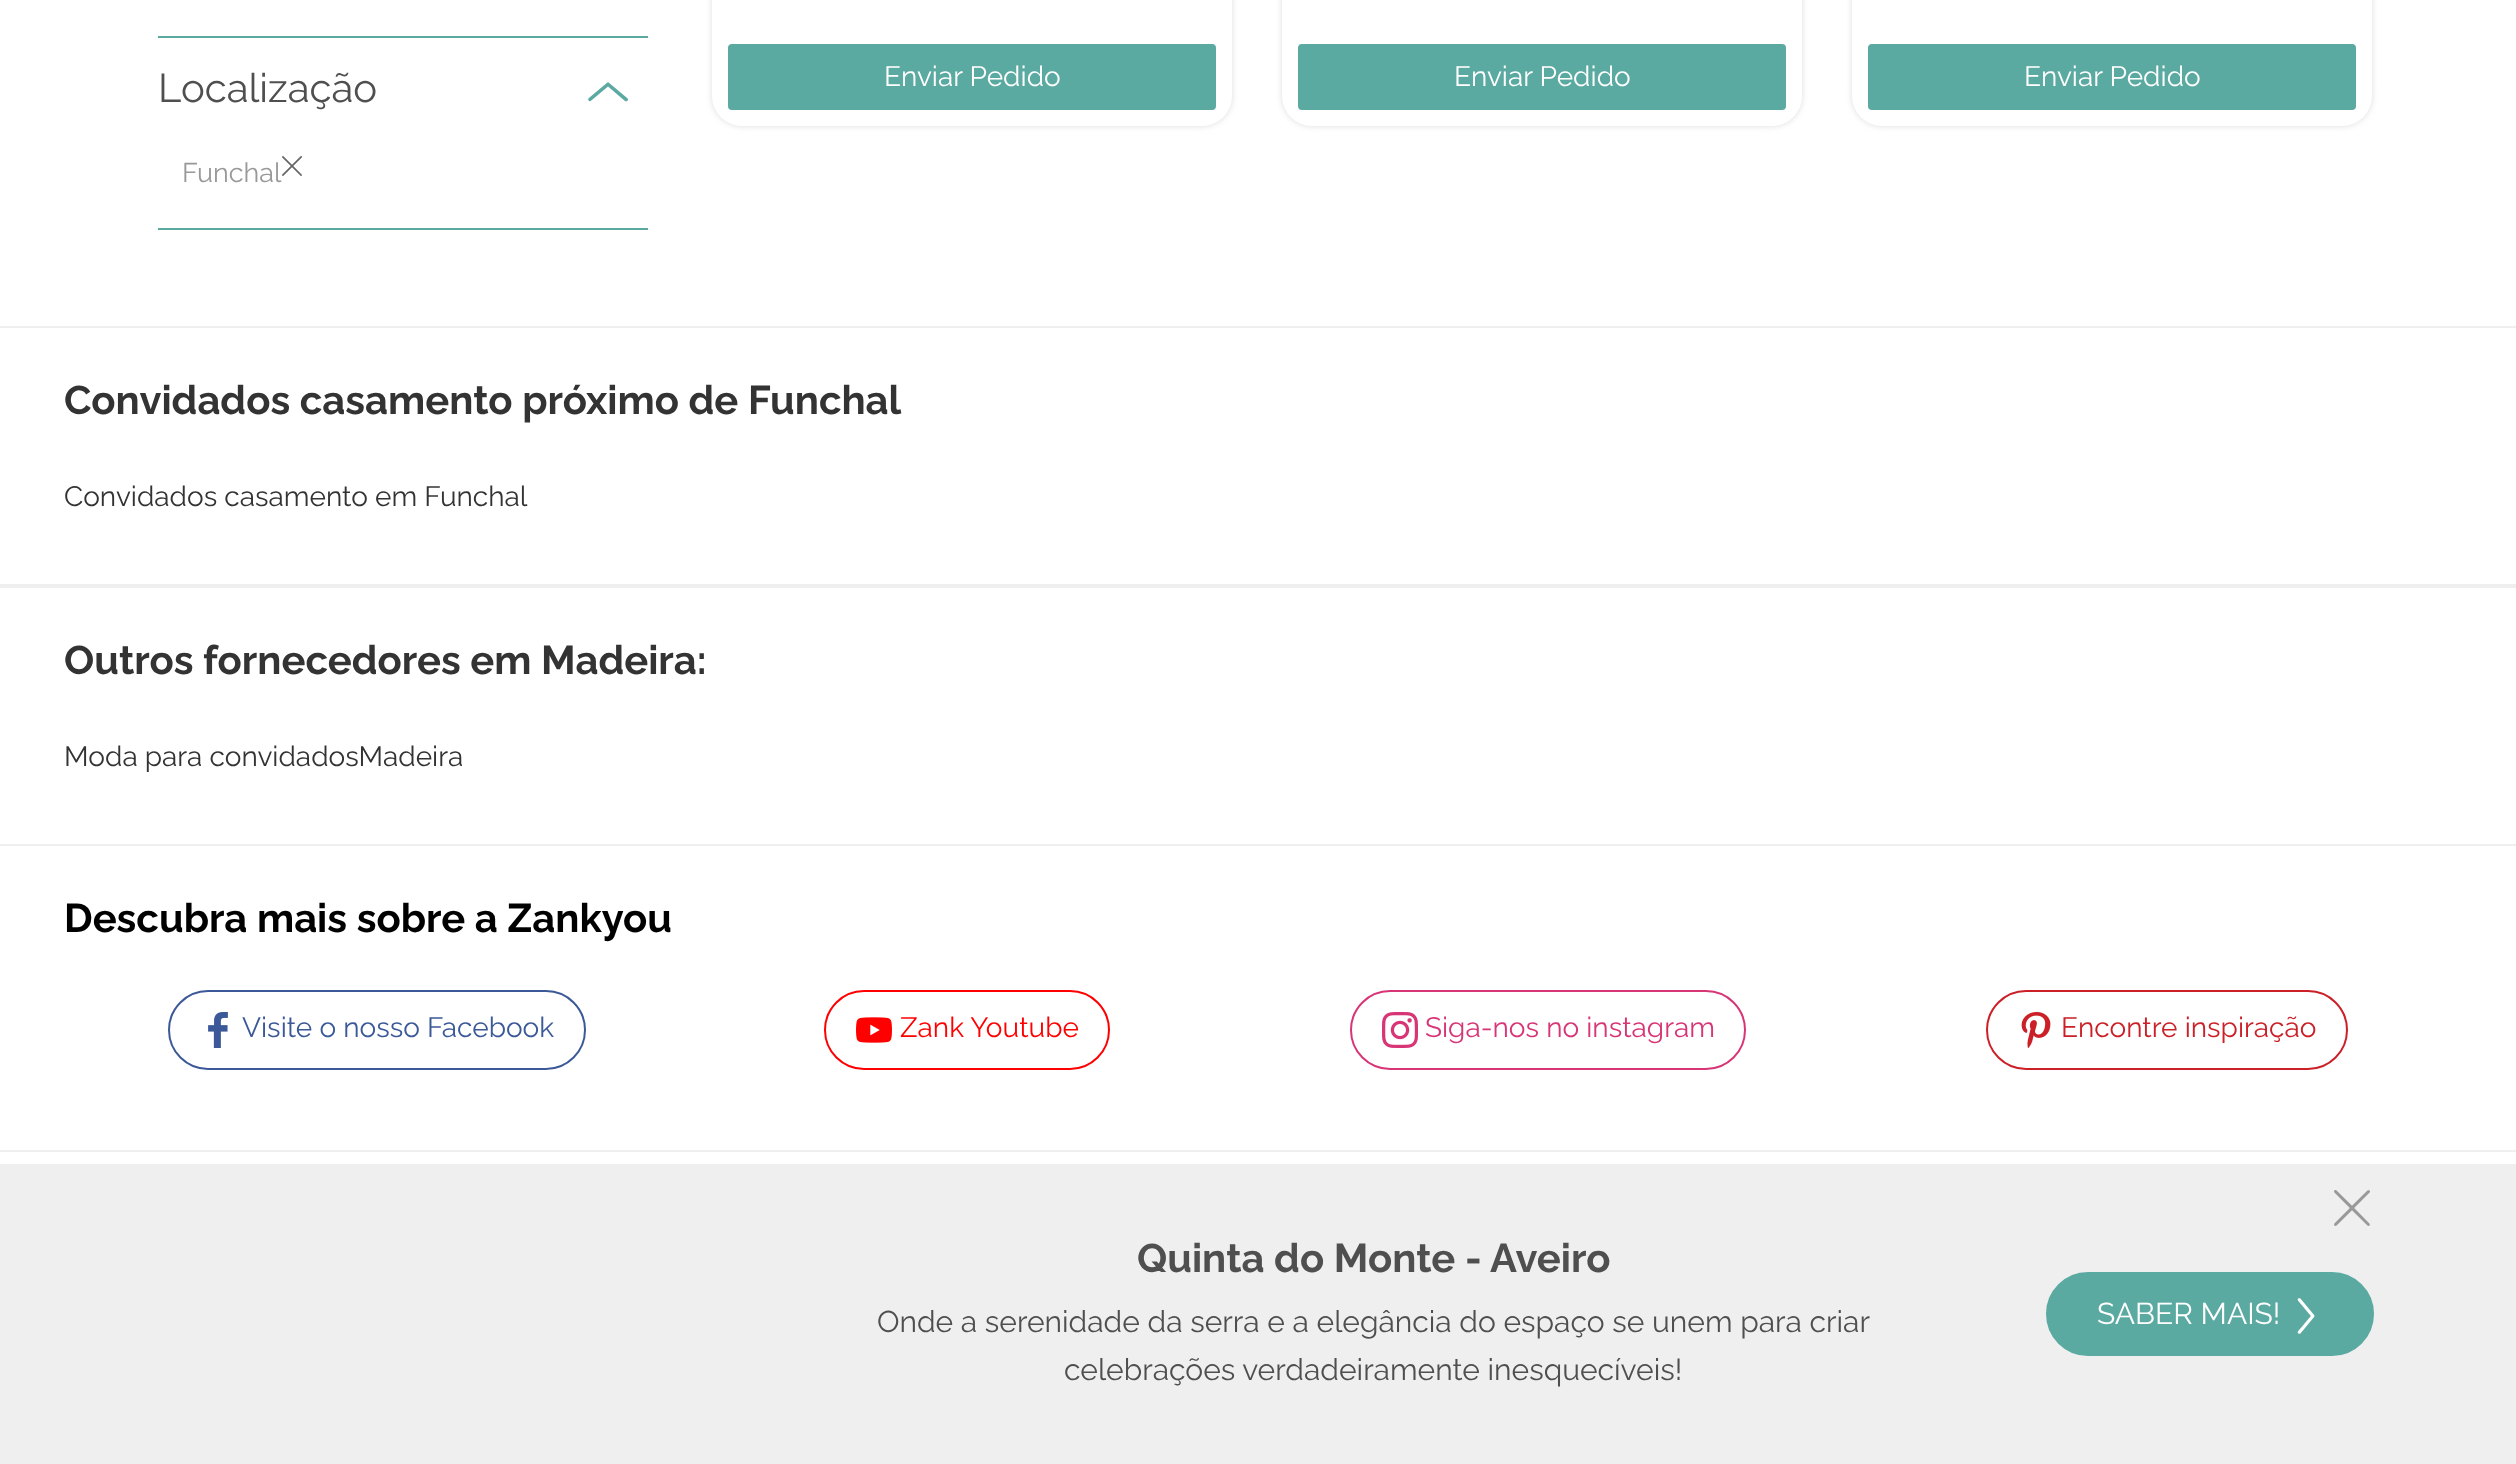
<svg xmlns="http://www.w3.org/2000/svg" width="2516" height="1464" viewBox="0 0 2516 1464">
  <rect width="100%" height="100%" fill="rgb(255,255,255)"/>
  <rect x="158" y="36" width="490" height="2" fill="rgb(91,170,161)"/>
  <text x="158" y="102" font-family="Raleway" font-size="40" fill="rgb(79,79,79)">Localização</text>
  <image x="588" y="82" width="40" height="20" href="pic1.png"/>
  <text x="182" y="182" font-family="Raleway" font-size="27" fill="rgb(153,153,153)">Funchal</text>
  <image x="282" y="156" width="20" height="20" href="pic2.png"/>
  <rect x="158" y="228" width="490" height="2" fill="rgb(91,170,161)"/>
  <rect x="712" y="-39" width="520" height="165" rx="30" fill="rgb(221,221,221)" filter="blur(3px)"/>
  <rect x="712" y="-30" width="520" height="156" rx="30" fill="rgb(255,255,255)"/>
  <rect x="729" y="45" width="486" height="64" rx="3" fill="rgb(91,170,161)" stroke="rgb(91,170,161)" stroke-width="2"/>
  <text x="884" y="86" font-family="Raleway" font-size="28" fill="rgb(255,255,255)">Enviar Pedido</text>
  <rect x="1282" y="-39" width="520" height="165" rx="30" fill="rgb(221,221,221)" filter="blur(3px)"/>
  <rect x="1282" y="-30" width="520" height="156" rx="30" fill="rgb(255,255,255)"/>
  <rect x="1299" y="45" width="486" height="64" rx="3" fill="rgb(91,170,161)" stroke="rgb(91,170,161)" stroke-width="2"/>
  <text x="1454" y="86" font-family="Raleway" font-size="28" fill="rgb(255,255,255)">Enviar Pedido</text>
  <rect x="1852" y="-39" width="520" height="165" rx="30" fill="rgb(221,221,221)" filter="blur(3px)"/>
  <rect x="1852" y="-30" width="520" height="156" rx="30" fill="rgb(255,255,255)"/>
  <rect x="1869" y="45" width="486" height="64" rx="3" fill="rgb(91,170,161)" stroke="rgb(91,170,161)" stroke-width="2"/>
  <text x="2024" y="86" font-family="Raleway" font-size="28" fill="rgb(255,255,255)">Enviar Pedido</text>
  <rect x="0" y="326" width="2516" height="2" fill="rgb(239,239,239)"/>
  <rect x="0" y="584" width="2516" height="4" fill="rgb(239,239,239)"/>
  <text x="64" y="414" font-family="Raleway" font-size="40" font-weight="bold" fill="rgb(51,51,51)">Convidados casamento próximo de Funchal</text>
  <text x="64" y="506" font-family="Raleway" font-size="28" fill="rgb(51,51,51)">Convidados casamento em Funchal</text>
  <rect x="0" y="844" width="2516" height="2" fill="rgb(239,239,239)"/>
  <text x="64" y="674" font-family="Raleway" font-size="40" font-weight="bold" fill="rgb(51,51,51)">Outros fornecedores em Madeira:</text>
  <text x="64" y="766" font-family="Raleway" font-size="28" fill="rgb(51,51,51)">Moda para convidadosMadeira</text>
  <rect x="0" y="1164" width="2516" height="300" fill="rgb(239,239,239)"/>
  <image x="2334" y="1190" width="36" height="36" href="pic3.png"/>
  <text x="1137" y="1272" font-family="Raleway" font-size="40" font-weight="bold" fill="rgb(79,79,79)">Quinta do Monte - Aveiro</text>
  <g font-family="Raleway" font-size="30" fill="rgb(79,79,79)">
    <text x="877" y="1332">Onde a serenidade da serra e a elegância do espaço se unem para criar</text>
    <text x="1064" y="1380">celebrações verdadeiramente inesquecíveis!</text>
  </g>
  <rect x="2047" y="1273" width="326" height="82" rx="41" fill="rgb(91,170,161)" stroke="rgb(91,170,161)" stroke-width="2"/>
  <text x="2097" y="1324" font-family="Raleway" font-size="30" fill="rgb(255,255,255)">SABER MAIS!</text>
  <image x="2297" y="1298" width="18" height="36" href="pic4.png"/>
  <rect x="0" y="1150" width="2516" height="2" fill="rgb(239,239,239)"/>
  <text x="64" y="932" font-family="Raleway" font-size="40" font-weight="bold" fill="rgb(0,0,0)">Descubra mais sobre a Zankyou</text>
  <rect x="169" y="991" width="416" height="78" rx="39" fill="none" stroke="rgb(59,89,152)" stroke-width="2"/>
  <image x="208" y="1012" width="20" height="36" href="pic5.png"/>
  <text x="242" y="1037" font-family="Raleway" font-size="28" fill="rgb(59,89,152)">Visite o nosso Facebook</text>
  <rect x="825" y="991" width="284" height="78" rx="39" fill="none" stroke="rgb(255,0,0)" stroke-width="2"/>
  <image x="856" y="1017" width="36" height="26" href="pic6.png"/>
  <text x="900" y="1037" font-family="Raleway" font-size="28" fill="rgb(255,0,0)">Zank Youtube</text>
  <rect x="1351" y="991" width="394" height="78" rx="39" fill="none" stroke="rgb(215,53,118)" stroke-width="2"/>
  <image x="1382" y="1012" width="36" height="36" href="pic7.png"/>
  <text x="1425" y="1037" font-family="Raleway" font-size="28" fill="rgb(215,53,118)">Siga-nos no instagram</text>
  <rect x="1987" y="991" width="360" height="78" rx="39" fill="none" stroke="rgb(203,32,39)" stroke-width="2"/>
  <image x="2021" y="1012" width="30" height="36" href="pic8.png"/>
  <text x="2061" y="1037" font-family="Raleway" font-size="28" fill="rgb(203,32,39)">Encontre inspiração</text>
</svg>
